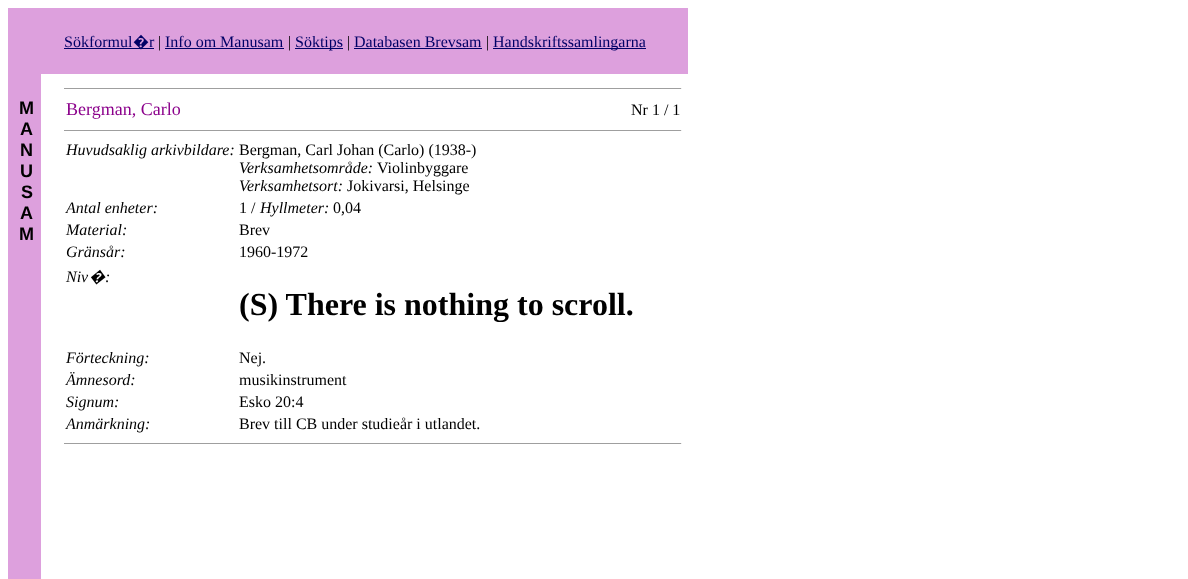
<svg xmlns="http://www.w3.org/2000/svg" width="1188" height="579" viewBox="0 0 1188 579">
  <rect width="100%" height="100%" fill="rgb(255,255,255)"/>
  <rect x="8" y="8" width="680" height="66" fill="rgb(221,160,221)"/>
  <text x="64" y="47" font-family="Liberation Serif" font-size="16" fill="rgb(0,0,102)">Sökformul</text>
  <rect x="64" y="48" width="90" height="1" fill="rgb(0,0,102)"/>
  <text x="133" y="47" font-family="Noto Sans" font-size="16" fill="rgb(0,0,102)">�</text>
  <text x="149" y="47" font-family="Liberation Serif" font-size="16" fill="rgb(0,0,102)">r</text>
  <text x="158" y="47" font-family="Liberation Serif" font-size="16" fill="rgb(0,0,0)">|</text>
  <text x="165" y="47" font-family="Liberation Serif" font-size="16" fill="rgb(0,0,102)">Info om Manusam</text>
  <rect x="165" y="48" width="119" height="1" fill="rgb(0,0,102)"/>
  <text x="288" y="47" font-family="Liberation Serif" font-size="16" fill="rgb(0,0,0)">|</text>
  <rect x="295" y="48" width="48" height="1" fill="rgb(0,0,102)"/>
  <text x="295" y="47" font-family="Liberation Serif" font-size="16" fill="rgb(0,0,102)">Söktips</text>
  <text x="347" y="47" font-family="Liberation Serif" font-size="16" fill="rgb(0,0,0)">|</text>
  <text x="354" y="47" font-family="Liberation Serif" font-size="16" fill="rgb(0,0,102)">Databasen Brevsam</text>
  <rect x="354" y="48" width="128" height="1" fill="rgb(0,0,102)"/>
  <text x="486" y="47" font-family="Liberation Serif" font-size="16" fill="rgb(0,0,0)">|</text>
  <rect x="493" y="48" width="153" height="1" fill="rgb(0,0,102)"/>
  <text x="493" y="47" font-family="Liberation Serif" font-size="16" fill="rgb(0,0,102)">Handskriftssamlingarna</text>
  <rect x="8" y="74" width="33" height="505" fill="rgb(221,160,221)"/>
  <g font-family="Liberation Sans" font-size="18" font-weight="bold" fill="rgb(0,0,0)">
    <text x="19" y="114">M</text>
    <text>
      <tspan x="20" y="135">A</tspan>
      <tspan x="20" y="156">N</tspan>
      <tspan x="20" y="177">U</tspan>
    </text>
    <text x="21" y="198">S</text>
    <text x="20" y="219">A</text>
    <text x="19" y="240">M</text>
  </g>
  <rect x="64" y="88" width="618" height="1" fill="rgb(159,159,159)"/>
  <rect x="681" y="88" width="1" height="1" fill="rgb(238,238,238)"/>
  <text x="66" y="115" font-family="Liberation Serif" font-size="18" fill="rgb(139,0,139)">Bergman, Carlo</text>
  <text x="631" y="115" font-family="Liberation Serif" font-size="16" fill="rgb(0,0,0)">Nr 1 / 1</text>
  <rect x="64" y="130" width="618" height="1" fill="rgb(159,159,159)"/>
  <rect x="681" y="130" width="1" height="1" fill="rgb(238,238,238)"/>
  <text x="66" y="155" font-family="Liberation Serif" font-size="16" font-style="italic" fill="rgb(0,0,0)">Huvudsaklig arkivbildare:</text>
  <text x="239" y="155" font-family="Liberation Serif" font-size="16" fill="rgb(0,0,0)">Bergman, Carl Johan (Carlo) (1938-)</text>
  <text x="239" y="173" font-family="Liberation Serif" font-size="16" font-style="italic" fill="rgb(0,0,0)">Verksamhetsområde:</text>
  <text x="377" y="173" font-family="Liberation Serif" font-size="16" fill="rgb(0,0,0)">Violinbyggare</text>
  <text x="239" y="191" font-family="Liberation Serif" font-size="16" font-style="italic" fill="rgb(0,0,0)">Verksamhetsort:</text>
  <text x="347" y="191" font-family="Liberation Serif" font-size="16" fill="rgb(0,0,0)">Jokivarsi, Helsinge</text>
  <text x="66" y="213" font-family="Liberation Serif" font-size="16" font-style="italic" fill="rgb(0,0,0)">Antal enheter:</text>
  <text x="239" y="213" font-family="Liberation Serif" font-size="16" fill="rgb(0,0,0)">1 /</text>
  <text x="260" y="213" font-family="Liberation Serif" font-size="16" font-style="italic" fill="rgb(0,0,0)">Hyllmeter:</text>
  <text x="333" y="213" font-family="Liberation Serif" font-size="16" fill="rgb(0,0,0)">0,04</text>
  <text x="66" y="235" font-family="Liberation Serif" font-size="16" font-style="italic" fill="rgb(0,0,0)">Material:</text>
  <text x="239" y="235" font-family="Liberation Serif" font-size="16" fill="rgb(0,0,0)">Brev</text>
  <text x="66" y="257" font-family="Liberation Serif" font-size="16" font-style="italic" fill="rgb(0,0,0)">Gränsår:</text>
  <text x="239" y="257" font-family="Liberation Serif" font-size="16" fill="rgb(0,0,0)">1960-1972</text>
  <text x="66" y="282" font-family="Liberation Serif" font-size="16" font-style="italic" fill="rgb(0,0,0)">Niv</text>
  <text x="89" y="282" font-family="Noto Sans" font-size="16" font-style="italic" fill="rgb(0,0,0)">�</text>
  <text x="105" y="282" font-family="Liberation Serif" font-size="16" font-style="italic" fill="rgb(0,0,0)">:</text>
  <text x="239" y="315" font-family="Liberation Serif" font-size="32" font-weight="bold" fill="rgb(0,0,0)">(S) There is nothing to scroll.</text>
  <text x="66" y="363" font-family="Liberation Serif" font-size="16" font-style="italic" fill="rgb(0,0,0)">Förteckning:</text>
  <text x="239" y="363" font-family="Liberation Serif" font-size="16" fill="rgb(0,0,0)">Nej.</text>
  <text x="66" y="385" font-family="Liberation Serif" font-size="16" font-style="italic" fill="rgb(0,0,0)">Ämnesord:</text>
  <text x="239" y="385" font-family="Liberation Serif" font-size="16" fill="rgb(0,0,0)">musikinstrument</text>
  <text x="66" y="407" font-family="Liberation Serif" font-size="16" font-style="italic" fill="rgb(0,0,0)">Signum:</text>
  <text x="239" y="407" font-family="Liberation Serif" font-size="16" fill="rgb(0,0,0)">Esko 20:4</text>
  <text x="66" y="429" font-family="Liberation Serif" font-size="16" font-style="italic" fill="rgb(0,0,0)">Anmärkning:</text>
  <text x="239" y="429" font-family="Liberation Serif" font-size="16" fill="rgb(0,0,0)">Brev till CB under studieår i utlandet.</text>
  <rect x="64" y="443" width="618" height="1" fill="rgb(159,159,159)"/>
  <rect x="681" y="443" width="1" height="1" fill="rgb(238,238,238)"/>
</svg>
